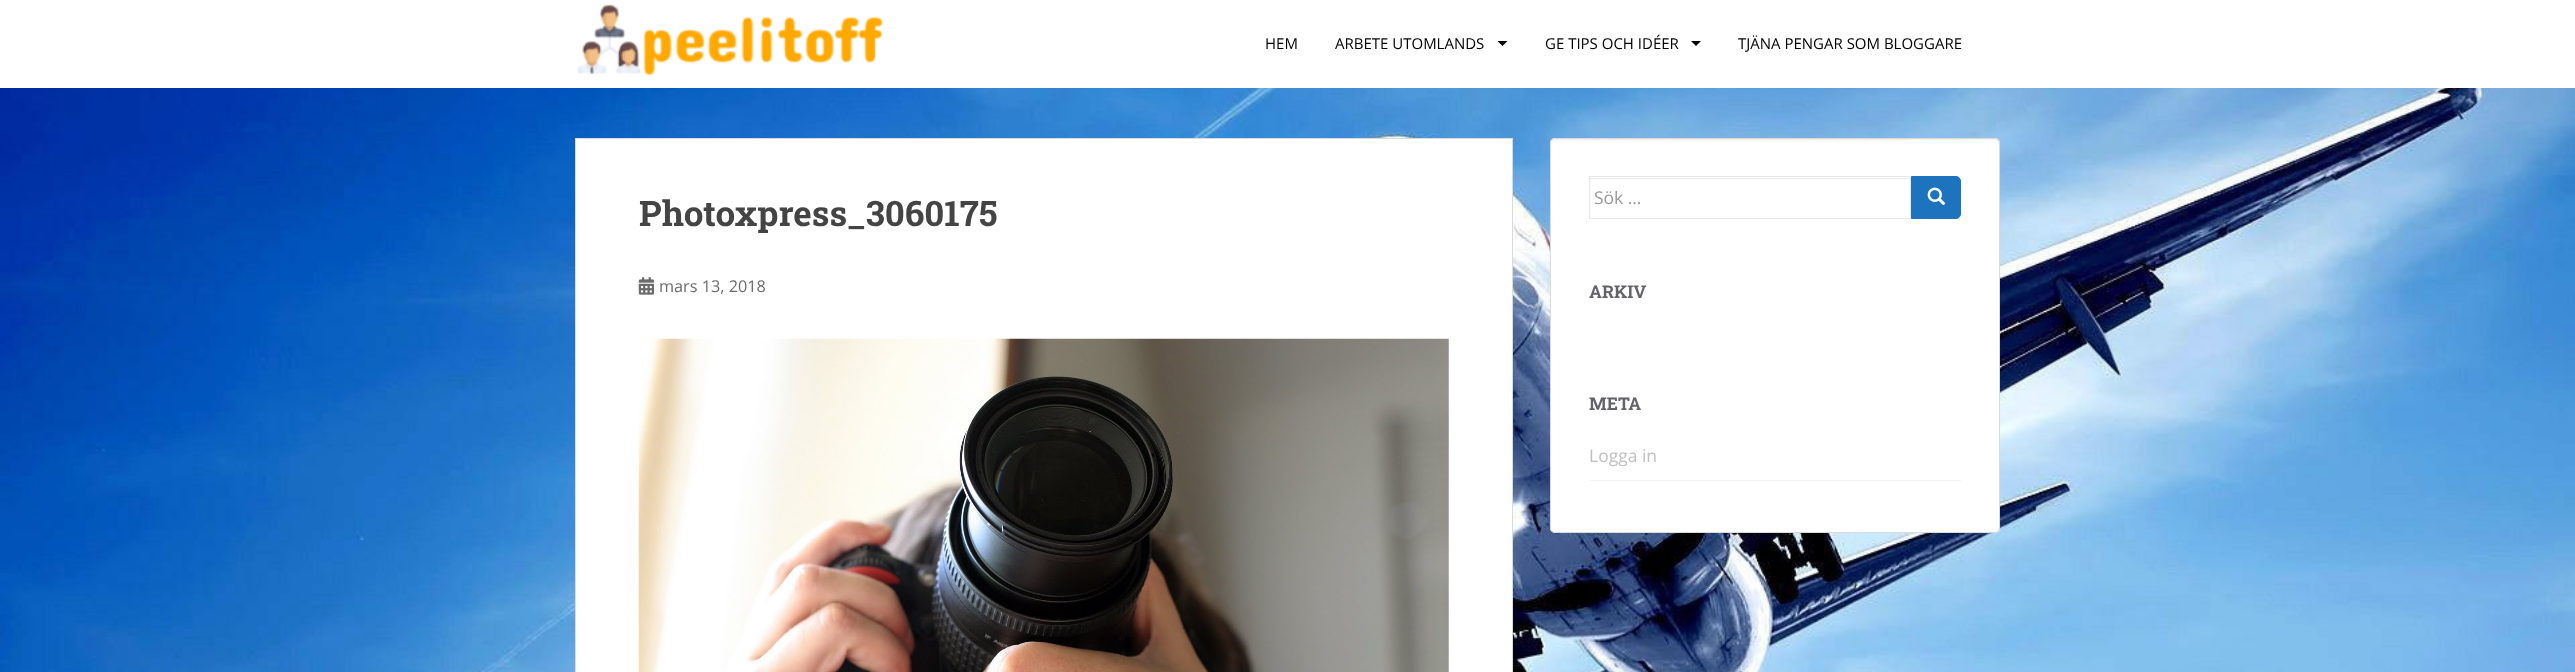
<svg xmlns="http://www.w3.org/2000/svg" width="2575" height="672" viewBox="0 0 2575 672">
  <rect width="100%" height="100%" fill="rgb(255,255,255)"/>
  <image x="0" y="88" width="2575" height="584" href="pic1.png"/>
  <image x="577" y="4" width="307" height="72" href="pic2.png"/>
  <g font-family="Open Sans" font-size="15" fill="rgb(0,0,0)">
    <text x="1265" y="49">HEM</text>
    <text x="1335" y="49">ARBETE UTOMLANDS</text>
  </g>
  <path d="M1497.5 41H1507.5L1502.5 46Z" fill="rgb(0,0,0)"/>
  <text x="1545" y="49" font-family="Open Sans" font-size="15" fill="rgb(0,0,0)">GE TIPS OCH IDÉER</text>
  <path d="M1691 41H1701L1696 46Z" fill="rgb(0,0,0)"/>
  <text x="1738" y="49" font-family="Open Sans" font-size="15" fill="rgb(0,0,0)">TJÄNA PENGAR SOM BLOGGARE</text>
  <rect x="575.5" y="138.5" width="937" height="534" fill="rgb(255,255,255)" stroke="rgb(218,218,218)"/>
  <text x="639" y="226" font-family="Roboto Slab" font-size="35" font-weight="bold" fill="rgb(68,68,68)">Photoxpress_3060175</text>
  <image x="638" y="277" width="17" height="18" href="pic3.png"/>
  <text x="659" y="292" font-family="Open Sans" font-size="16.25" fill="rgb(107,107,107)">mars 13, 2018</text>
  <image x="638" y="338" width="811" height="334" href="pic4.png"/>
  <rect x="1550" y="138" width="450" height="395" rx="5" fill="rgb(255,255,255)"/>
  <path d="M1555 140H1995C1997 140 1999 142 1999 144C1999 141 1998 139 1995 139H1555L1553 140L1552 141L1551 144C1551 142 1553 140 1555 140Z" fill="rgb(242,242,242)"/>
  <rect x="1550.5" y="138.5" width="449" height="394" rx="4.5" fill="none" stroke="rgb(218,218,218)"/>
  <rect x="1590" y="178" width="320" height="1" fill="rgb(236,236,236)"/>
  <rect x="1589.5" y="176.5" width="321" height="42" fill="none" stroke="rgb(232,232,232)"/>
  <text x="1594" y="204" font-family="Open Sans" font-size="17.5" fill="rgb(153,153,153)">Sök …</text>
  <path d="M1911.5 176.5H1956C1958.5 176.5 1960.5 178.5 1960.5 181V214C1960.5 216.5 1958.5 218.5 1956 218.5H1911.5Z" fill="rgb(30,115,190)" stroke="rgb(30,115,190)"/>
  <image x="1927" y="187" width="19" height="19" href="pic5.png"/>
  <g font-family="Roboto Slab" font-size="17.5" font-weight="bold" fill="rgb(99,100,103)">
    <text x="1589" y="298">ARKIV</text>
    <text x="1589" y="410">META</text>
  </g>
  <rect x="1589" y="480" width="372" height="1" fill="rgb(242,242,242)"/>
  <text x="1589" y="462" font-family="Open Sans" font-size="17.5" fill="rgb(193,192,192)">Logga in</text>
</svg>
